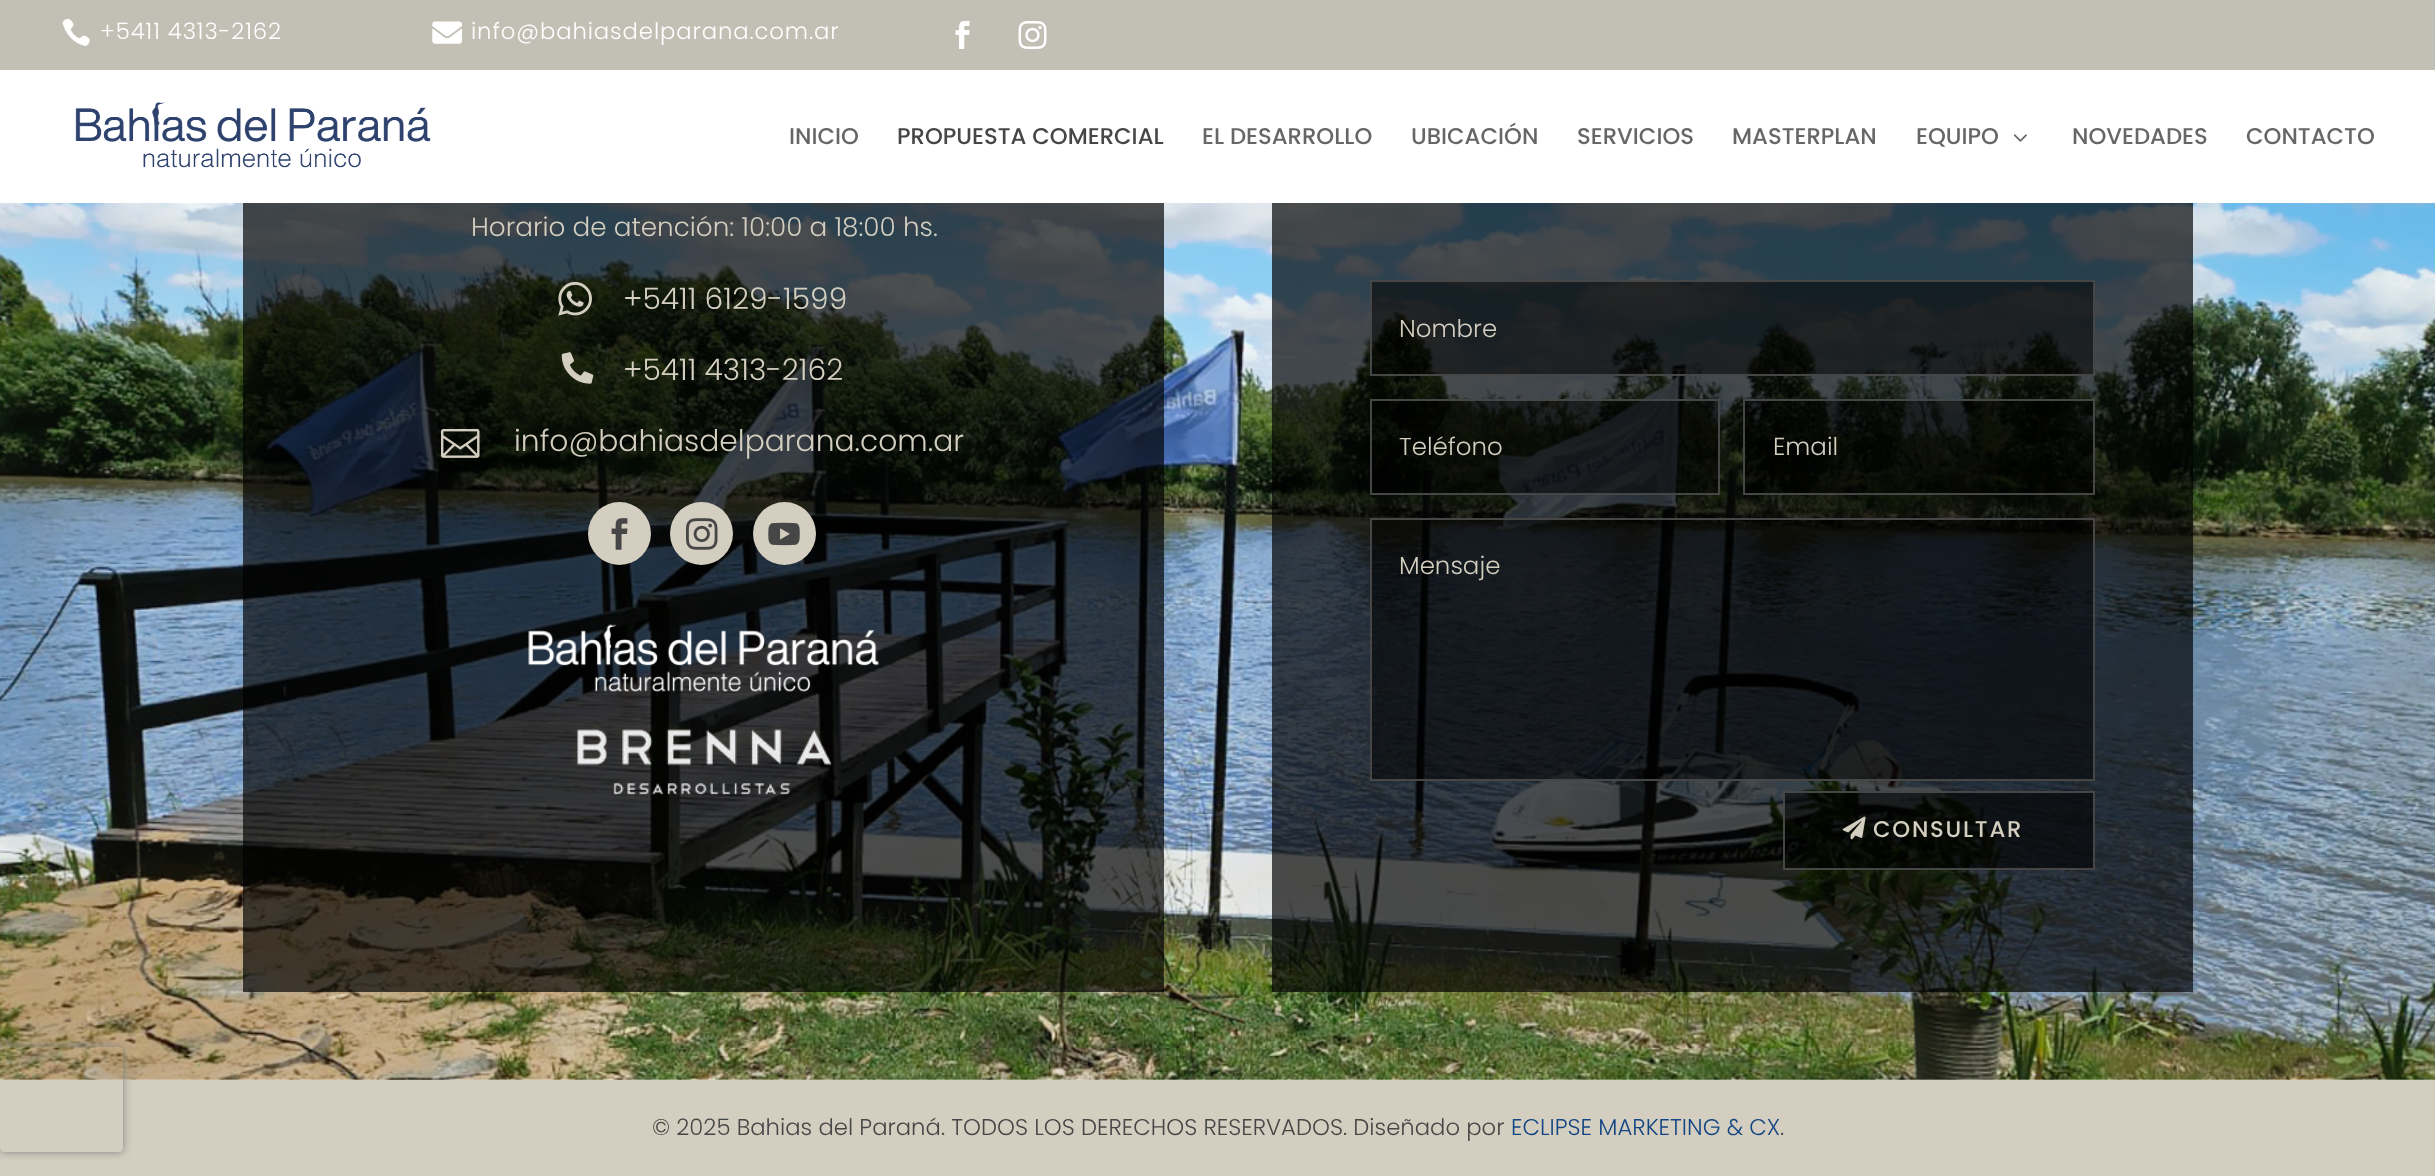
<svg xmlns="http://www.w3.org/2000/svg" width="2435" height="1176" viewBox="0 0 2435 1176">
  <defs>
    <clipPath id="clip1"><path d="M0 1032H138V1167H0ZM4 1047H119C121 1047 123 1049 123 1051V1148C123 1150 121 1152 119 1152H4C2 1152 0 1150 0 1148V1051C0 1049 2 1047 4 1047Z" clip-rule="evenodd"/></clipPath>
  </defs>
  <rect width="100%" height="100%" fill="rgb(255,255,255)"/>
  <image x="0" y="203" width="2435" height="877" href="pic7.png"/>
  <rect x="0" y="1080" width="2435" height="96" fill="rgb(211,206,191)"/>
  <g clip-path="url(#clip1)">
    <rect x="0" y="1047" width="123" height="105" rx="4" fill="rgb(128,128,128)" filter="blur(4.5px)"/>
  </g>
  <rect x="0" y="0" width="2435" height="70" fill="rgb(194,191,181)"/>
  <image x="62" y="18" width="28" height="29" href="pic1.png"/>
  <text x="100" y="39" font-family="Poppins" font-size="22.75" font-weight="300" letter-spacing="0.9" fill="rgb(255,255,255)">+5411 4313-2162</text>
  <image x="432" y="21" width="30" height="23" href="pic2.png"/>
  <text x="471" y="39" font-family="Poppins" font-size="22.75" font-weight="300" letter-spacing="0.9" fill="rgb(255,255,255)">info@bahiasdelparana.com.ar</text>
  <image x="955" y="21" width="15" height="28" href="pic3.png"/>
  <image x="1018" y="21" width="29" height="28" href="pic4.png"/>
  <image x="75" y="102" width="356" height="66" href="pic5.png"/>
  <text x="789" y="144" font-family="Poppins" font-size="22.75" font-weight="500" fill="rgb(102,102,102)">INICIO</text>
  <text x="897" y="144" font-family="Poppins" font-size="22.75" font-weight="500" fill="rgb(71,70,71)">PROPUESTA COMERCIAL</text>
  <g font-family="Poppins" font-size="22.75" font-weight="500" fill="rgb(102,102,102)">
    <text x="1202" y="144">EL DESARROLLO</text>
    <text x="1411" y="144">UBICACIÓN</text>
    <text x="1577" y="144">SERVICIOS</text>
    <text x="1732" y="144">MASTERPLAN</text>
    <text x="1916" y="144">EQUIPO</text>
  </g>
  <image x="2013" y="134" width="14" height="8" href="pic6.png"/>
  <g font-family="Poppins" font-size="22.75" font-weight="500" fill="rgb(102,102,102)">
    <text x="2072" y="144">NOVEDADES</text>
    <text x="2246" y="144">CONTACTO</text>
  </g>
  <rect x="243" y="203" width="921" height="789" fill="rgba(0,0,0,0.68)"/>
  <text x="471" y="236" font-family="Poppins" font-size="26.25" font-weight="300" fill="rgb(211,206,191)">Horario de atención: 10:00 a 18:00 hs.</text>
  <image x="558" y="282" width="34" height="34" href="pic8.png"/>
  <text x="623" y="309" font-family="Poppins" font-size="29.75" font-weight="300" fill="rgb(211,206,191)">+5411 6129-1599</text>
  <image x="561" y="352" width="33" height="32" href="pic9.png"/>
  <text x="623" y="380" font-family="Poppins" font-size="29.75" font-weight="300" fill="rgb(211,206,191)">+5411 4313-2162</text>
  <image x="441" y="429" width="39" height="29" href="pic10.png"/>
  <text x="514" y="451" font-family="Poppins" font-size="29.75" font-weight="300" fill="rgb(211,206,191)">info@bahiasdelparana.com.ar</text>
  <circle cx="619.5" cy="533.5" r="31.5" fill="rgb(211,206,191)"/>
  <image x="611" y="518" width="17" height="32" href="pic11.png"/>
  <circle cx="701.5" cy="533.5" r="31.5" fill="rgb(211,206,191)"/>
  <image x="686" y="518" width="32" height="32" href="pic12.png"/>
  <circle cx="784.5" cy="533.5" r="31.5" fill="rgb(211,206,191)"/>
  <image x="768" y="522" width="32" height="24" href="pic13.png"/>
  <image x="528" y="624" width="351" height="68" href="pic14.png"/>
  <image x="572" y="723" width="261" height="73" href="pic15.png"/>
  <rect x="1272" y="203" width="921" height="789" fill="rgba(0,0,0,0.68)"/>
  <rect x="1371" y="281" width="723" height="94" fill="rgba(0,0,0,0.53)" stroke="rgb(71,70,71)" stroke-width="2"/>
  <text x="1399" y="337" font-family="Poppins" font-size="24.5" font-weight="300" fill="rgb(211,206,191)">Nombre</text>
  <rect x="1371" y="400" width="348" height="94" fill="rgba(0,0,0,0.53)" stroke="rgb(71,70,71)" stroke-width="2"/>
  <text x="1399" y="455" font-family="Poppins" font-size="24.5" font-weight="300" fill="rgb(211,206,191)">Teléfono</text>
  <rect x="1744" y="400" width="350" height="94" fill="rgba(0,0,0,0.53)" stroke="rgb(71,70,71)" stroke-width="2"/>
  <text x="1773" y="455" font-family="Poppins" font-size="24.5" font-weight="300" fill="rgb(211,206,191)">Email</text>
  <rect x="1371" y="519" width="723" height="261" fill="rgba(0,0,0,0.53)" stroke="rgb(71,70,71)" stroke-width="2"/>
  <text x="1399" y="574" font-family="Poppins" font-size="24.5" font-weight="300" fill="rgb(211,206,191)">Mensaje</text>
  <rect x="1784" y="792" width="310" height="77" fill="rgba(0,0,0,0.61)" stroke="rgb(71,70,71)" stroke-width="2"/>
  <image x="1842" y="816" width="24" height="24" href="pic16.png"/>
  <text x="1873" y="837" font-family="Poppins" font-size="22.75" font-weight="500" letter-spacing="1.75" fill="rgb(211,206,191)">CONSULTAR</text>
  <text x="652" y="1135" font-family="Poppins" font-size="22.75" font-weight="300" fill="rgb(71,70,71)">© 2025 Bahias del Paraná. TODOS LOS DERECHOS RESERVADOS. Diseñado por</text>
  <text x="1511" y="1135" font-family="Poppins" font-size="22.75" font-weight="300" fill="rgb(18,69,131)">ECLIPSE MARKETING &amp; CX</text>
  <text x="1780" y="1135" font-family="Poppins" font-size="22.75" font-weight="300" fill="rgb(71,70,71)">.</text>
</svg>
